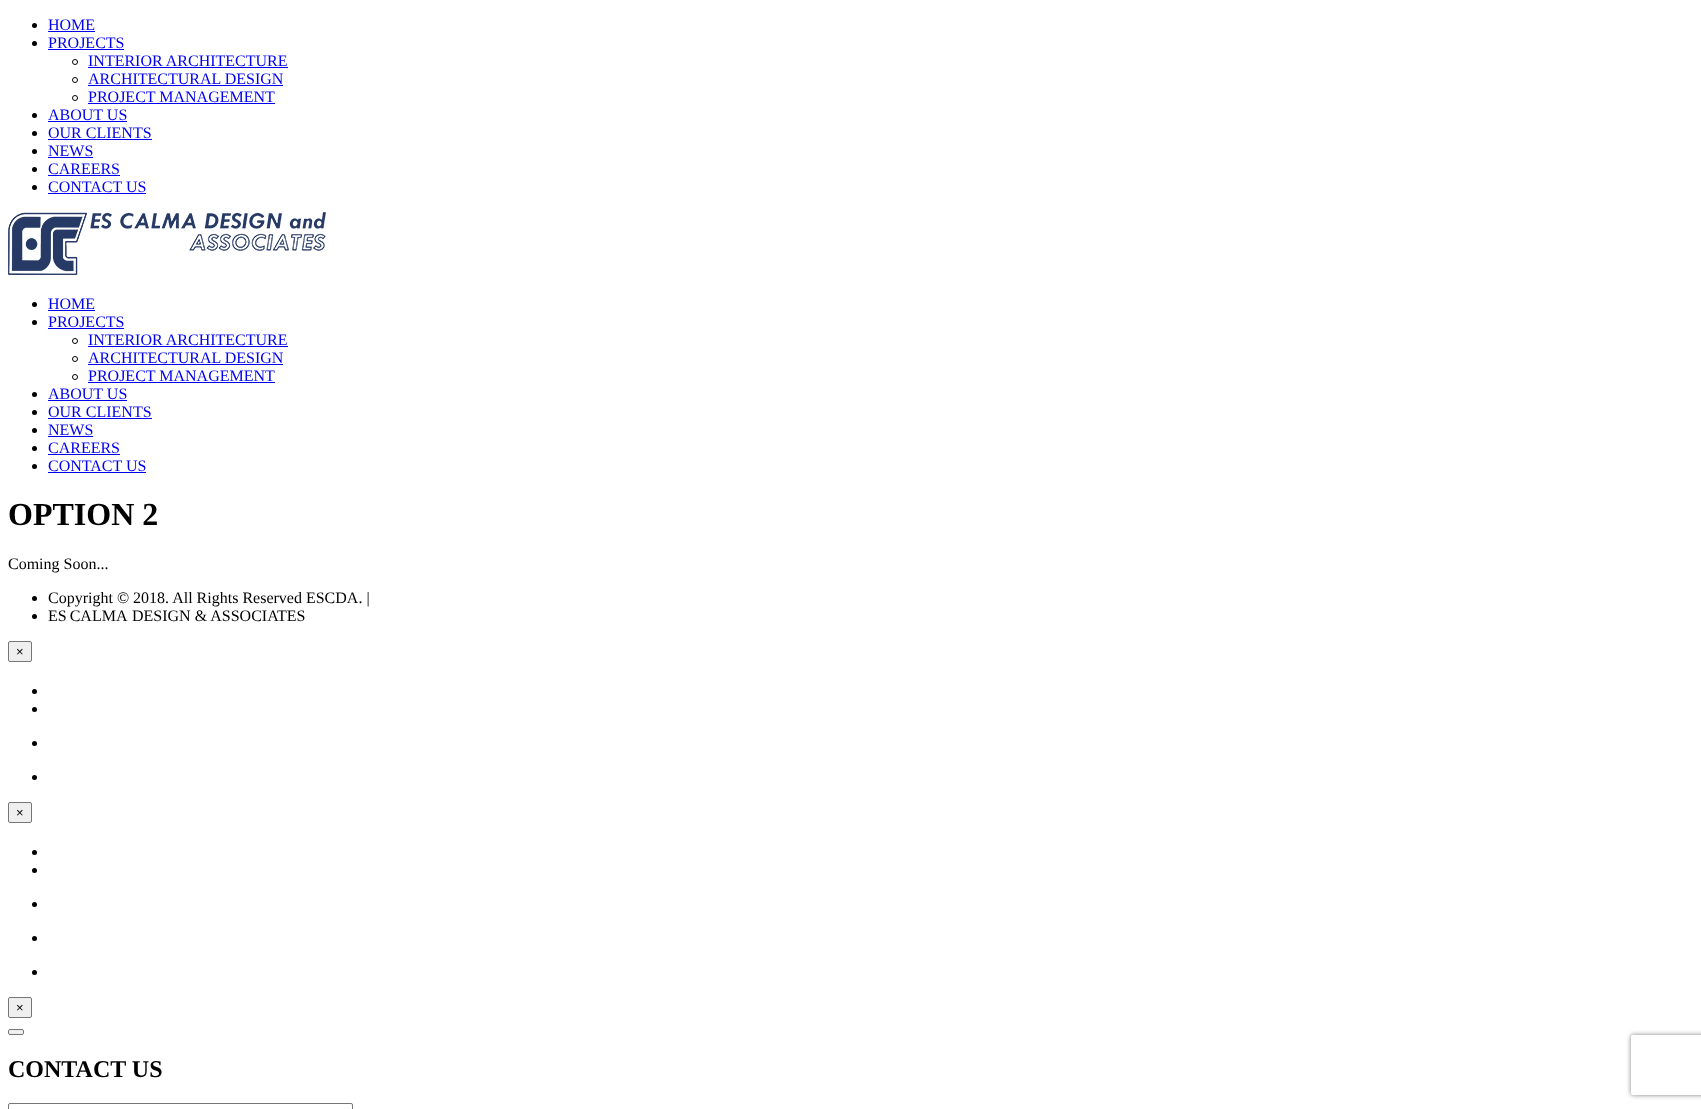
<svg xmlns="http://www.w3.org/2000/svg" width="1701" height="1109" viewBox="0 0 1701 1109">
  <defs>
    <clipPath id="clip1"><path d="M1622 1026H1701V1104H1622ZM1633 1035H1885C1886 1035 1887 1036 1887 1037V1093C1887 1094 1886 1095 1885 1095H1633C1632 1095 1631 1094 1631 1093V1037C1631 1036 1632 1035 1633 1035Z" clip-rule="evenodd"/></clipPath>
  </defs>
  <rect width="100%" height="100%" fill="rgb(255,255,255)"/>
  <circle cx="34.5" cy="25.5" r="2.5" fill="rgb(0,0,0)"/>
  <text x="48" y="30" font-family="Liberation Serif" font-size="16" fill="rgb(0,0,238)">HOME</text>
  <rect x="48" y="31" width="47" height="1" fill="rgb(0,0,238)"/>
  <circle cx="34.5" cy="43.5" r="2.5" fill="rgb(0,0,0)"/>
  <text x="48" y="48" font-family="Liberation Serif" font-size="16" fill="rgb(0,0,238)">PROJECTS</text>
  <rect x="48" y="49" width="76" height="1" fill="rgb(0,0,238)"/>
  <circle cx="75" cy="62" r="2.5" fill="none" stroke="rgb(0,0,0)"/>
  <text x="88" y="66" font-family="Liberation Serif" font-size="16" fill="rgb(0,0,238)">INTERIOR ARCHITECTURE</text>
  <rect x="88" y="67" width="200" height="1" fill="rgb(0,0,238)"/>
  <circle cx="75" cy="80" r="2.5" fill="none" stroke="rgb(0,0,0)"/>
  <text x="88" y="84" font-family="Liberation Serif" font-size="16" fill="rgb(0,0,238)">ARCHITECTURAL DESIGN</text>
  <rect x="88" y="85" width="195" height="1" fill="rgb(0,0,238)"/>
  <circle cx="75" cy="98" r="2.5" fill="none" stroke="rgb(0,0,0)"/>
  <text x="88" y="102" font-family="Liberation Serif" font-size="16" fill="rgb(0,0,238)">PROJECT MANAGEMENT</text>
  <rect x="88" y="103" width="187" height="1" fill="rgb(0,0,238)"/>
  <circle cx="34.5" cy="115.5" r="2.5" fill="rgb(0,0,0)"/>
  <text x="48" y="120" font-family="Liberation Serif" font-size="16" fill="rgb(0,0,238)">ABOUT US</text>
  <rect x="48" y="121" width="79" height="1" fill="rgb(0,0,238)"/>
  <circle cx="34.5" cy="133.5" r="2.5" fill="rgb(0,0,0)"/>
  <text x="48" y="138" font-family="Liberation Serif" font-size="16" fill="rgb(0,0,238)">OUR CLIENTS</text>
  <rect x="48" y="139" width="104" height="1" fill="rgb(0,0,238)"/>
  <circle cx="34.5" cy="151.5" r="2.5" fill="rgb(0,0,0)"/>
  <text x="48" y="156" font-family="Liberation Serif" font-size="16" fill="rgb(0,0,238)">NEWS</text>
  <rect x="48" y="157" width="45" height="1" fill="rgb(0,0,238)"/>
  <circle cx="34.5" cy="169.5" r="2.5" fill="rgb(0,0,0)"/>
  <text x="48" y="174" font-family="Liberation Serif" font-size="16" fill="rgb(0,0,238)">CAREERS</text>
  <rect x="48" y="175" width="72" height="1" fill="rgb(0,0,238)"/>
  <circle cx="34.5" cy="187.5" r="2.5" fill="rgb(0,0,0)"/>
  <text x="48" y="192" font-family="Liberation Serif" font-size="16" fill="rgb(0,0,238)">CONTACT US</text>
  <rect x="48" y="193" width="98" height="1" fill="rgb(0,0,238)"/>
  <image x="8" y="212" width="318" height="63" href="pic1.png"/>
  <circle cx="34.5" cy="304.5" r="2.5" fill="rgb(0,0,0)"/>
  <text x="48" y="309" font-family="Liberation Serif" font-size="16" fill="rgb(0,0,238)">HOME</text>
  <rect x="48" y="310" width="47" height="1" fill="rgb(0,0,238)"/>
  <circle cx="34.5" cy="322.5" r="2.5" fill="rgb(0,0,0)"/>
  <text x="48" y="327" font-family="Liberation Serif" font-size="16" fill="rgb(0,0,238)">PROJECTS</text>
  <rect x="48" y="328" width="76" height="1" fill="rgb(0,0,238)"/>
  <circle cx="75" cy="341" r="2.5" fill="none" stroke="rgb(0,0,0)"/>
  <text x="88" y="345" font-family="Liberation Serif" font-size="16" fill="rgb(0,0,238)">INTERIOR ARCHITECTURE</text>
  <rect x="88" y="346" width="200" height="1" fill="rgb(0,0,238)"/>
  <circle cx="75" cy="359" r="2.5" fill="none" stroke="rgb(0,0,0)"/>
  <text x="88" y="363" font-family="Liberation Serif" font-size="16" fill="rgb(0,0,238)">ARCHITECTURAL DESIGN</text>
  <rect x="88" y="364" width="195" height="1" fill="rgb(0,0,238)"/>
  <circle cx="75" cy="377" r="2.5" fill="none" stroke="rgb(0,0,0)"/>
  <text x="88" y="381" font-family="Liberation Serif" font-size="16" fill="rgb(0,0,238)">PROJECT MANAGEMENT</text>
  <rect x="88" y="382" width="187" height="1" fill="rgb(0,0,238)"/>
  <circle cx="34.5" cy="394.5" r="2.5" fill="rgb(0,0,0)"/>
  <text x="48" y="399" font-family="Liberation Serif" font-size="16" fill="rgb(0,0,238)">ABOUT US</text>
  <rect x="48" y="400" width="79" height="1" fill="rgb(0,0,238)"/>
  <circle cx="34.5" cy="412.5" r="2.5" fill="rgb(0,0,0)"/>
  <text x="48" y="417" font-family="Liberation Serif" font-size="16" fill="rgb(0,0,238)">OUR CLIENTS</text>
  <rect x="48" y="418" width="104" height="1" fill="rgb(0,0,238)"/>
  <circle cx="34.5" cy="430.5" r="2.5" fill="rgb(0,0,0)"/>
  <text x="48" y="435" font-family="Liberation Serif" font-size="16" fill="rgb(0,0,238)">NEWS</text>
  <rect x="48" y="436" width="45" height="1" fill="rgb(0,0,238)"/>
  <circle cx="34.5" cy="448.5" r="2.5" fill="rgb(0,0,0)"/>
  <text x="48" y="453" font-family="Liberation Serif" font-size="16" fill="rgb(0,0,238)">CAREERS</text>
  <rect x="48" y="454" width="72" height="1" fill="rgb(0,0,238)"/>
  <circle cx="34.5" cy="466.5" r="2.5" fill="rgb(0,0,0)"/>
  <text x="48" y="471" font-family="Liberation Serif" font-size="16" fill="rgb(0,0,238)">CONTACT US</text>
  <rect x="48" y="472" width="98" height="1" fill="rgb(0,0,238)"/>
  <text x="8" y="525" font-family="Liberation Serif" font-size="32" font-weight="bold" fill="rgb(0,0,0)">OPTION 2</text>
  <text x="8" y="569" font-family="Liberation Serif" font-size="16" fill="rgb(0,0,0)">Coming Soon...</text>
  <circle cx="34.5" cy="598.5" r="2.5" fill="rgb(0,0,0)"/>
  <text x="48" y="603" font-family="Liberation Serif" font-size="16" fill="rgb(0,0,0)">Copyright © 2018. All Rights Reserved ESCDA. |</text>
  <circle cx="34.5" cy="616.5" r="2.5" fill="rgb(0,0,0)"/>
  <g font-family="Liberation Serif" font-size="16" fill="rgb(0,0,0)">
    <text x="48" y="621" word-spacing="-1">ES CALMA</text>
    <text x="132" y="621">DESIGN &amp; ASSOCIATES</text>
  </g>
  <rect x="8.5" y="641.5" width="23" height="20" rx="1.5" fill="rgb(239,239,239)" stroke="rgb(118,118,118)"/>
  <text x="16" y="656" font-family="Liberation Sans" font-size="13" fill="rgb(0,0,0)">×</text>
  <circle cx="34.5" cy="691.5" r="2.5" fill="rgb(0,0,0)"/>
  <circle cx="34.5" cy="709.5" r="2.5" fill="rgb(0,0,0)"/>
  <circle cx="34.5" cy="743.5" r="2.5" fill="rgb(0,0,0)"/>
  <circle cx="34.5" cy="777.5" r="2.5" fill="rgb(0,0,0)"/>
  <rect x="8.5" y="802.5" width="23" height="20" rx="1.5" fill="rgb(239,239,239)" stroke="rgb(118,118,118)"/>
  <text x="16" y="817" font-family="Liberation Sans" font-size="13" fill="rgb(0,0,0)">×</text>
  <circle cx="34.5" cy="852.5" r="2.5" fill="rgb(0,0,0)"/>
  <circle cx="34.5" cy="870.5" r="2.5" fill="rgb(0,0,0)"/>
  <circle cx="34.5" cy="904.5" r="2.5" fill="rgb(0,0,0)"/>
  <circle cx="34.5" cy="938.5" r="2.5" fill="rgb(0,0,0)"/>
  <circle cx="34.5" cy="972.5" r="2.5" fill="rgb(0,0,0)"/>
  <rect x="8.5" y="997.5" width="23" height="20" rx="1.5" fill="rgb(239,239,239)" stroke="rgb(118,118,118)"/>
  <text x="16" y="1012" font-family="Liberation Sans" font-size="13" fill="rgb(0,0,0)">×</text>
  <rect x="8.5" y="1029.5" width="15" height="5" rx="1.5" fill="rgb(239,239,239)" stroke="rgb(118,118,118)"/>
  <text x="8" y="1077" font-family="Liberation Serif" font-size="24" font-weight="bold" fill="rgb(0,0,0)">CONTACT US</text>
  <rect x="8.5" y="1103.5" width="344" height="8" rx="1.5" fill="none" stroke="rgb(118,118,118)"/>
  <g clip-path="url(#clip1)">
    <rect x="1631" y="1035" width="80" height="60" rx="2" fill="rgb(128,128,128)" filter="blur(2.5px)"/>
  </g>
</svg>
